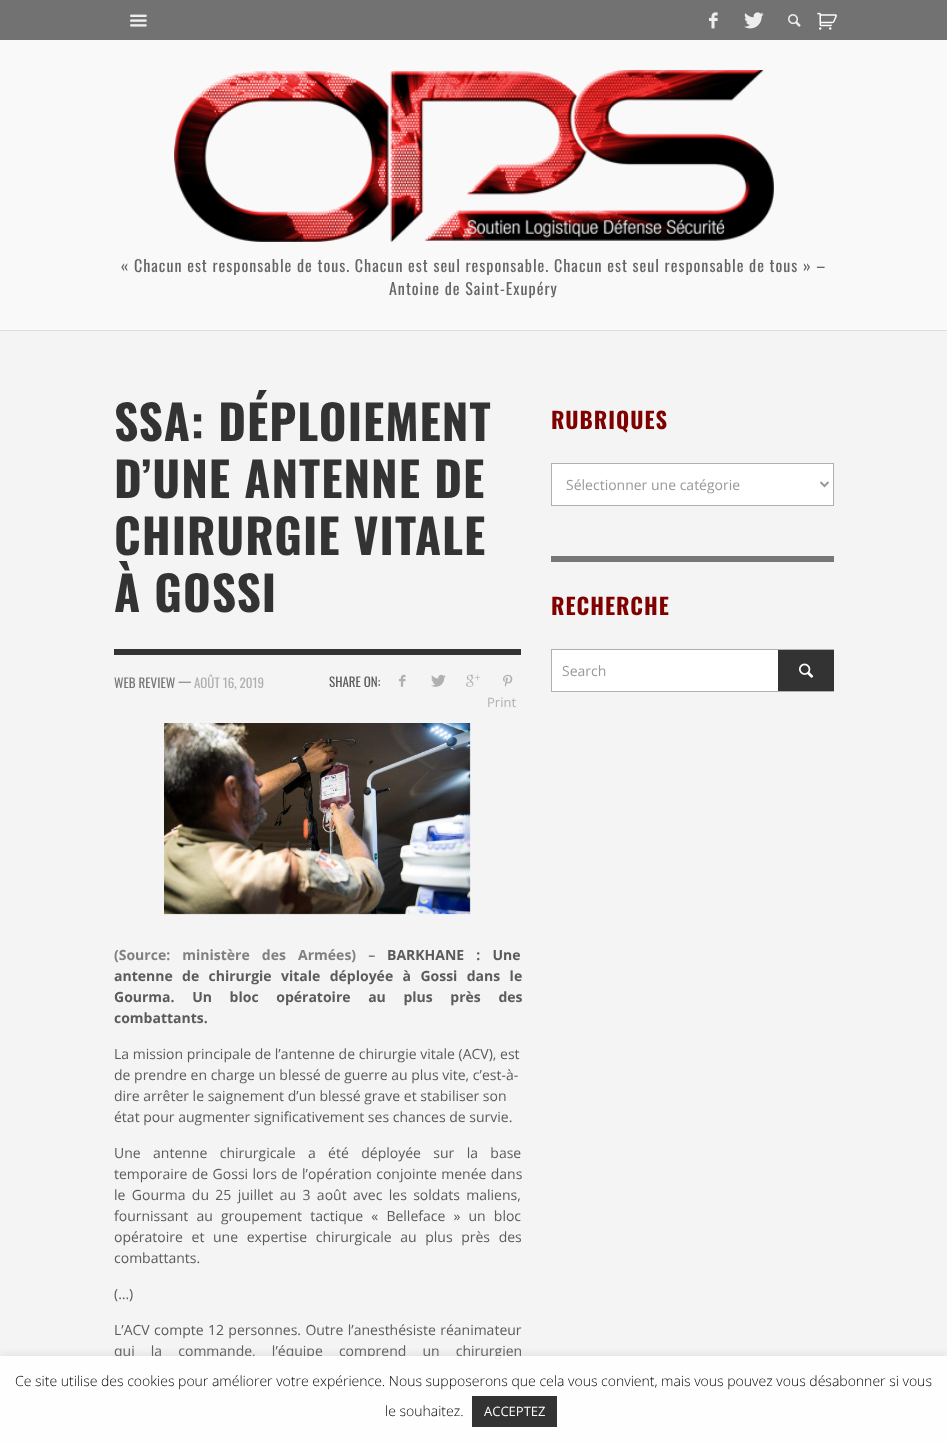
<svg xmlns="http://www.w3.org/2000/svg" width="947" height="1444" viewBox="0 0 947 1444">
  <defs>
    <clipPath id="clip1"><rect x="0" y="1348" width="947" height="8"/></clipPath>
  </defs>
  <rect width="100%" height="100%" fill="rgb(244,244,244)"/>
  <rect x="0" y="0" width="947" height="40" fill="rgb(114,114,114)"/>
  <image x="130" y="14" width="17" height="13" href="pic1.png"/>
  <image x="709" y="12" width="9" height="17" href="pic2.png"/>
  <image x="744" y="12" width="20" height="17" href="pic3.png"/>
  <image x="788" y="14" width="13" height="13" href="pic4.png"/>
  <image x="817" y="12" width="20" height="18" href="pic5.png"/>
  <rect x="0" y="40" width="947" height="290" fill="rgb(249,249,249)"/>
  <rect x="0" y="330" width="947" height="1" fill="rgb(221,221,221)"/>
  <image x="174" y="70" width="600" height="172" href="pic6.png"/>
  <g font-family="Oswald" font-size="16" letter-spacing="1" fill="rgb(102,102,102)">
    <text x="121" y="272">« Chacun est responsable de tous. Chacun est seul responsable. Chacun est seul responsable de tous » –</text>
    <text x="389" y="295">Antoine de Saint-Exupéry</text>
  </g>
  <g font-family="Oswald" font-size="47.5" font-weight="bold" letter-spacing="1" fill="rgb(51,51,51)">
    <text>
      <tspan x="114" y="441">SSA: DÉPLOIEMENT</tspan>
      <tspan x="114" y="498">D’UNE ANTENNE DE</tspan>
      <tspan x="114" y="555">CHIRURGIE VITALE</tspan>
      <tspan x="114" y="612">À GOSSI</tspan>
    </text>
  </g>
  <rect x="114" y="649" width="407" height="6" fill="rgb(51,51,51)"/>
  <g font-family="Oswald" font-size="13" fill="rgb(119,119,119)">
    <text x="114" y="688">WEB REVIEW</text>
    <text x="178" y="686">—</text>
  </g>
  <text x="194" y="688" font-family="Oswald" font-size="13" fill="rgb(176,176,176)">AOÛT 16, 2019</text>
  <text x="329" y="687" font-family="Oswald" font-size="13" fill="rgb(91,91,91)">SHARE ON:</text>
  <image x="399" y="674" width="7" height="13" href="pic7.png"/>
  <image x="431" y="674" width="15" height="13" href="pic8.png"/>
  <image x="466" y="674" width="15" height="13" href="pic9.png"/>
  <image x="503" y="674" width="10" height="13" href="pic10.png"/>
  <text x="487" y="707" font-family="Open Sans" font-size="13" fill="rgb(176,176,176)">Print</text>
  <image x="164" y="723" width="307" height="192" href="pic11.png"/>
  <text x="114" y="960" word-spacing="8.5" font-family="Open Sans" font-size="14" font-weight="bold" fill="rgb(128,128,128)">(Source: ministère des Armées) –</text>
  <g font-family="Open Sans" font-size="14" font-weight="bold" fill="rgb(91,91,91)">
    <text x="387" y="960" word-spacing="8.5">BARKHANE : Une</text>
    <text>
      <tspan x="114" y="981" word-spacing="5.75">antenne de chirurgie vitale déployée à Gossi dans le</tspan>
      <tspan x="114" y="1002" word-spacing="14">Gourma. Un bloc opératoire au plus près des</tspan>
      <tspan x="114" y="1023">combattants.</tspan>
    </text>
  </g>
  <g font-family="Open Sans" font-size="14" fill="rgb(91,91,91)">
    <text>
      <tspan x="114" y="1059">La mission principale de l’antenne de chirurgie vitale (ACV), est</tspan>
      <tspan x="114" y="1080">de prendre en charge un blessé de guerre au plus vite, c’est-à-</tspan>
      <tspan x="114" y="1101">dire arrêter le saignement d’un blessé grave et stabiliser son</tspan>
      <tspan x="114" y="1122">état pour augmenter significativement ses chances de survie.</tspan>
    </text>
    <text>
      <tspan x="114" y="1158" word-spacing="8.75">Une antenne chirurgicale a été déployée sur la base</tspan>
      <tspan x="114" y="1179" word-spacing="0.75">temporaire de Gossi lors de l’opération conjointe menée dans</tspan>
      <tspan x="114" y="1200" word-spacing="2.75">le Gourma du 25 juillet au 3 août avec les soldats maliens,</tspan>
      <tspan x="114" y="1221" word-spacing="4.5">fournissant au groupement tactique « Belleface » un bloc</tspan>
      <tspan x="114" y="1242" word-spacing="5">opératoire et une expertise chirurgicale au plus près des</tspan>
      <tspan x="114" y="1263">combattants.</tspan>
    </text>
    <text x="114" y="1299">(…)</text>
    <text>
      <tspan x="114" y="1335" word-spacing="0.75">L’ACV compte 12 personnes. Outre l’anesthésiste réanimateur</tspan>
      <tspan x="114" y="1356" word-spacing="12.5">qui la commande, l’équipe comprend un chirurgien</tspan>
    </text>
  </g>
  <text x="551" y="429" font-family="Oswald" font-size="22.5" font-weight="bold" letter-spacing="1" fill="rgb(128,0,0)">RUBRIQUES</text>
  <rect x="551.5" y="463.5" width="282" height="42" fill="rgb(255,255,255)" stroke="rgb(176,176,176)"/>
  <path d="M820.5 482L824.5 486L828.5 482" fill="none" stroke="rgb(153,153,153)" stroke-width="2"/>
  <text x="566" y="490" font-family="Open Sans" font-size="14" fill="rgb(153,153,153)">Sélectionner une catégorie</text>
  <rect x="551" y="556" width="283" height="6" fill="rgb(119,119,119)"/>
  <text x="551" y="615" font-family="Oswald" font-size="22.5" font-weight="bold" letter-spacing="1" fill="rgb(128,0,0)">RECHERCHE</text>
  <rect x="552" y="650" width="226" height="41" fill="rgb(255,255,255)"/>
  <rect x="551.5" y="649.5" width="282" height="42" fill="none" stroke="rgb(176,176,176)"/>
  <text x="562" y="676" font-family="Open Sans" font-size="14" fill="rgb(153,153,153)">Search</text>
  <rect x="778" y="650" width="56" height="41" fill="rgb(51,51,51)"/>
  <image x="799" y="663" width="15" height="15" href="pic12.png"/>
  <g clip-path="url(#clip1)">
    <rect x="0" y="1355" width="947" height="88" fill="rgba(172,171,171,0.3)" filter="blur(5px)"/>
  </g>
  <rect x="0" y="1356" width="947" height="88" fill="rgba(255,255,255,0.9)"/>
  <g font-family="Open Sans" font-size="14" font-weight="300" fill="rgb(0,0,0)">
    <text x="15" y="1386">Ce site utilise des cookies pour améliorer votre expérience. Nous supposerons que cela vous convient, mais vous pouvez vous désabonner si vous</text>
    <text x="385" y="1416">le souhaitez.</text>
  </g>
  <rect x="472" y="1396" width="85" height="31" fill="rgb(51,51,51)"/>
  <text x="484" y="1416" font-family="Open Sans" font-size="13" fill="rgb(255,255,255)">ACCEPTEZ</text>
</svg>
